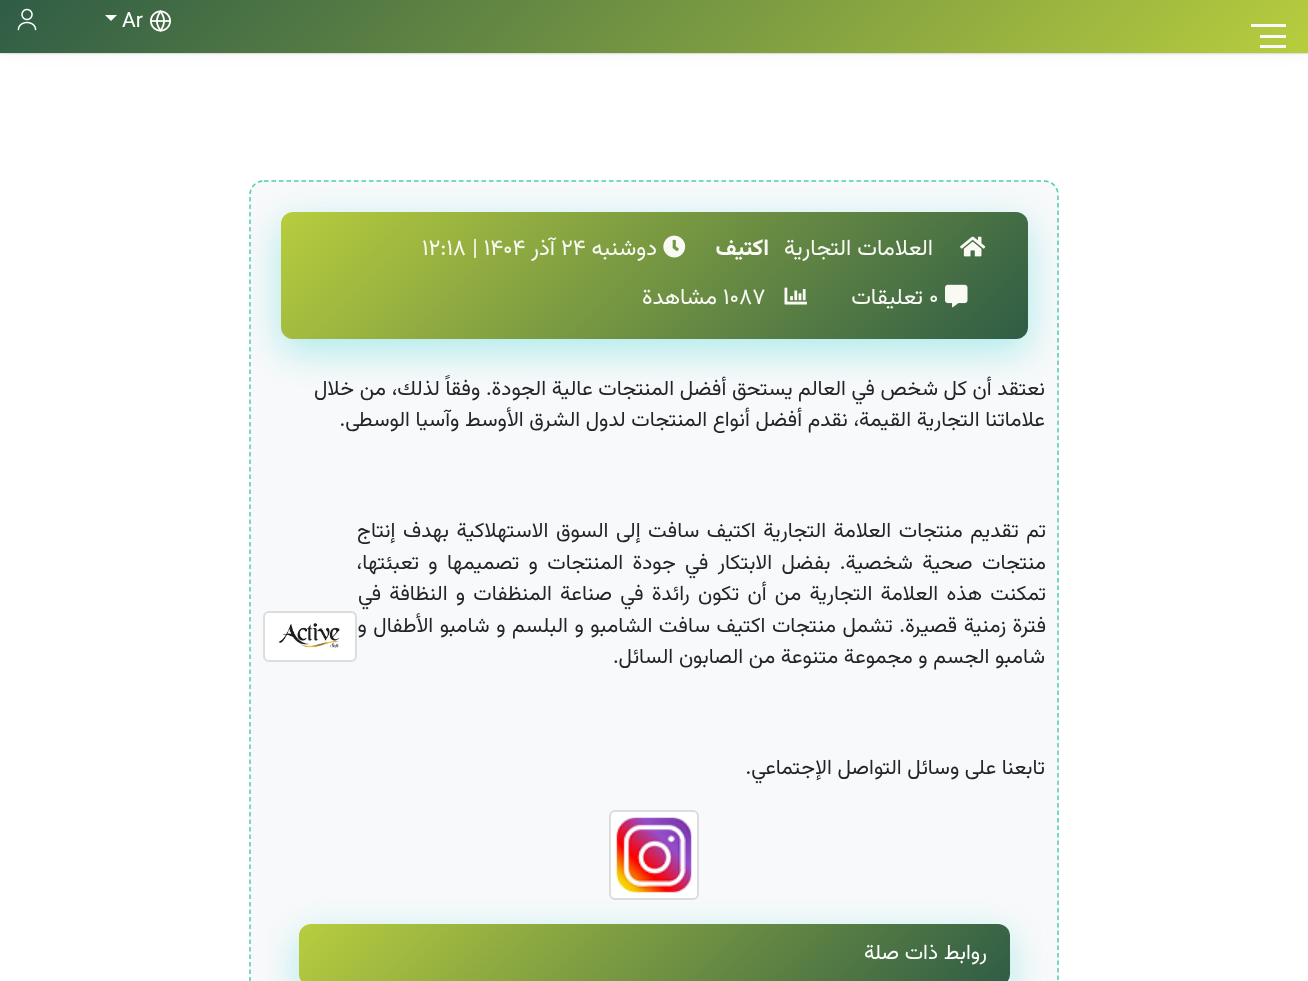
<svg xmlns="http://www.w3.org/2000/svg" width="1308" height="981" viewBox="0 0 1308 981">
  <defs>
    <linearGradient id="g1" gradientUnits="userSpaceOnUse" x1="314" y1="-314" x2="994" y2="366"><stop offset="0" stop-color="rgb(47,92,70)"/><stop offset="1" stop-color="rgb(184,205,62)"/></linearGradient>
    <clipPath id="clip1"><rect x="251" y="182" width="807" height="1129" rx="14"/></clipPath>
    <linearGradient id="g2" gradientUnits="userSpaceOnUse" x1="435" y1="57" x2="873" y2="494"><stop offset="0" stop-color="rgb(184,205,62)"/><stop offset="1" stop-color="rgb(47,92,70)"/></linearGradient>
    <linearGradient id="g3" gradientUnits="userSpaceOnUse" x1="461" y1="762" x2="847" y2="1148"><stop offset="0" stop-color="rgb(184,205,62)"/><stop offset="1" stop-color="rgb(47,92,70)"/></linearGradient>
  </defs>
  <rect width="100%" height="100%" fill="rgb(255,255,255)"/>
  <rect x="0" y="12" width="1308" height="30" rx="6" fill="rgba(0,0,0,0.15)" filter="blur(12px)"/>
  <rect x="0" y="0" width="1308" height="53" fill="rgba(0,0,0,0.3)" filter="blur(1px)"/>
  <rect x="0" y="0" width="1308" height="53" fill="url(#g1)"/>
  <image x="150" y="10" width="21" height="22" href="pic1.png"/>
  <text x="122" y="27" font-family="Vazirmatn" font-size="21" fill="rgb(255,255,255)">Ar</text>
  <path d="M105 15H117L111 21Z" fill="rgb(255,255,255)"/>
  <image x="17" y="8" width="20" height="23" href="pic2.png"/>
  <rect x="1260" y="35" width="26" height="3" fill="rgb(248,249,250)"/>
  <rect x="1251" y="24" width="35" height="3" fill="rgb(248,249,250)"/>
  <rect x="1260" y="45" width="26" height="3" fill="rgb(248,249,250)"/>
  <rect x="249" y="180" width="810" height="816" rx="15" fill="rgb(248,249,250)"/>
  <path d="M264 181H1044C1052 181 1058 187 1058 195V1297.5C1058 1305.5 1052 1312 1044 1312H264C256 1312 250 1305.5 250 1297.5V195C250 187 256 181 264 181Z" fill="none" stroke="rgb(77,205,175)" stroke-width="1.5" stroke-dasharray="4.5 3"/>
  <g clip-path="url(#clip1)">
    <rect x="281" y="224" width="747" height="127" rx="12" fill="rgba(55,212,209,0.4)" filter="blur(19px)"/>
  </g>
  <rect x="281" y="212" width="747" height="127" rx="12" fill="url(#g2)"/>
  <image x="960" y="236" width="26" height="21" href="pic3.png"/>
  <text x="933" y="255" font-family="Vazirmatn" font-size="22.5" direction="rtl" fill="rgb(250,250,245)">العلامات التجارية</text>
  <text x="769" y="255" font-family="Vazirmatn" font-size="22.5" font-weight="bold" direction="rtl" fill="rgb(250,250,245)">اكتيف</text>
  <image x="663" y="235" width="23" height="23" href="pic4.png"/>
  <text x="657" y="255" font-family="Vazirmatn" font-size="22.5" direction="rtl" fill="rgb(250,250,245)">دوشنبه</text>
  <text x="561" y="255" font-family="Vazirmatn" font-size="22.5" fill="rgb(250,250,245)">۲۴</text>
  <text x="555" y="255" font-family="Vazirmatn" font-size="22.5" direction="rtl" fill="rgb(250,250,245)">آذر</text>
  <text x="422" y="255" font-family="Vazirmatn" font-size="22.5" fill="rgb(250,250,245)">۱۲:۱۸ | ۱۴۰۴</text>
  <image x="945" y="284" width="23" height="24" href="pic5.png"/>
  <text x="929" y="304" font-family="Vazirmatn" font-size="22.5" fill="rgb(250,250,245)">۰</text>
  <text x="923" y="304" font-family="Vazirmatn" font-size="22.5" direction="rtl" fill="rgb(250,250,245)">تعليقات</text>
  <image x="784" y="287" width="23" height="18" href="pic6.png"/>
  <text x="723" y="304" font-family="Vazirmatn" font-size="22.5" fill="rgb(250,250,245)">۱۰۸۷</text>
  <text x="717" y="304" font-family="Vazirmatn" font-size="22.5" direction="rtl" fill="rgb(250,250,245)">مشاهدة</text>
  <g font-family="Vazirmatn" font-size="21" direction="rtl" fill="rgb(33,37,41)">
    <text>
      <tspan x="1045" y="395">نعتقد أن كل شخص في العالم يستحق أفضل المنتجات عالية الجودة. وفقاً لذلك، من خلال</tspan>
      <tspan x="1045" y="426">علاماتنا التجارية القيمة، نقدم أفضل أنواع المنتجات لدول الشرق الأوسط وآسيا الوسطى.</tspan>
    </text>
    <text>
      <tspan x="1046" y="537" word-spacing="1.9">تم تقديم منتجات العلامة التجارية اکتیف سافت إلى السوق الاستهلاكية بهدف إنتاج</tspan>
      <tspan x="1046" y="569" word-spacing="3.75">منتجات صحية شخصية. بفضل الابتكار في جودة المنتجات و تصميمها و تعبئتها،</tspan>
      <tspan x="1046" y="600" word-spacing="2.6">تمكنت هذه العلامة التجارية من أن تكون رائدة في صناعة المنظفات و النظافة في</tspan>
      <tspan x="1046" y="632" word-spacing="0.9">فترة زمنية قصيرة. تشمل منتجات اکتیف سافت الشامبو و البلسم و شامبو الأطفال و</tspan>
    </text>
    <text x="1045" y="663">شامبو الجسم و مجموعة متنوعة من الصابون السائل.</text>
  </g>
  <rect x="264" y="612" width="92" height="49" rx="5" fill="rgb(255,255,255)" stroke="rgb(221,221,221)" stroke-width="2"/>
  <image x="278" y="623" width="62" height="25" href="pic7.png"/>
  <text x="1045" y="774" font-family="Vazirmatn" font-size="21" direction="rtl" fill="rgb(33,37,41)">تابعنا على وسائل التواصل الإجتماعي.</text>
  <rect x="610" y="811" width="88" height="88" rx="5" fill="rgb(255,255,255)" stroke="rgb(221,221,221)" stroke-width="2"/>
  <image x="616" y="817" width="76" height="76" href="pic8.png"/>
  <rect x="299" y="936" width="711" height="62" rx="12" fill="rgba(55,212,209,0.4)" filter="blur(19px)"/>
  <rect x="299" y="924" width="711" height="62" rx="12" fill="url(#g3)"/>
  <text x="987" y="959" font-family="Vazirmatn" font-size="21" direction="rtl" fill="rgb(255,255,255)">روابط ذات صلة</text>
</svg>
